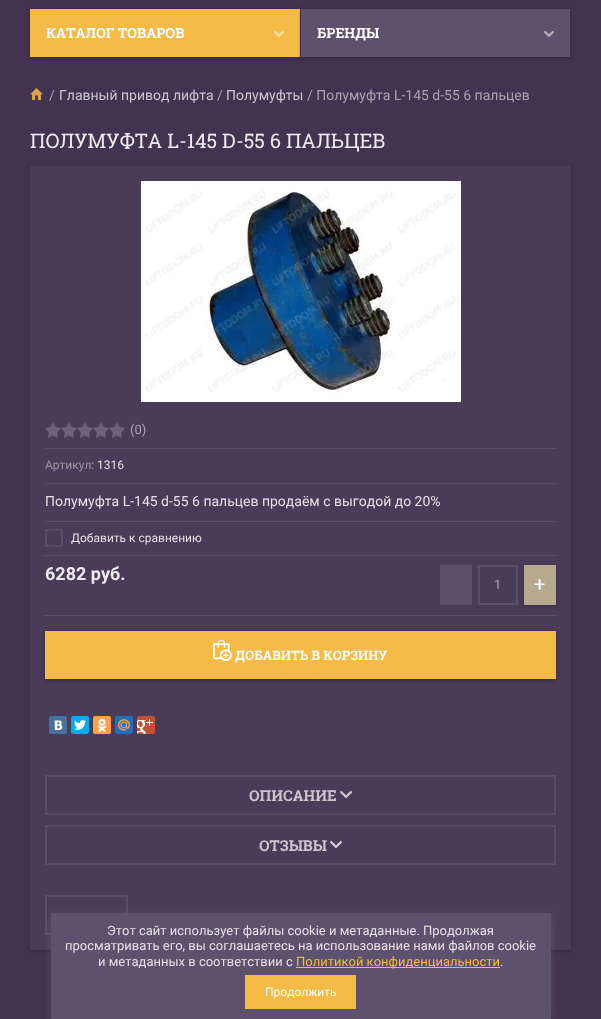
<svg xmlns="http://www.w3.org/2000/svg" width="601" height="1019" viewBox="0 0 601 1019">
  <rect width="100%" height="100%" fill="rgb(68,51,80)"/>
  <rect x="30" y="10" width="270" height="48" fill="rgba(0,0,0,0.28)" filter="blur(2px)"/>
  <rect x="30" y="9" width="270" height="48" fill="rgb(246,186,71)"/>
  <text x="46" y="38" font-family="Roboto Slab" font-size="14" font-weight="bold" fill="rgb(255,255,255)">КАТАЛОГ ТОВАРОВ</text>
  <image x="274" y="31" width="10" height="6" href="pic1.png"/>
  <rect x="301" y="10" width="269" height="48" fill="rgba(0,0,0,0.28)" filter="blur(2px)"/>
  <rect x="301" y="9" width="269" height="48" fill="rgb(93,81,109)"/>
  <text x="317" y="38" font-family="Roboto Slab" font-size="14" font-weight="bold" fill="rgb(255,255,255)">БРЕНДЫ</text>
  <image x="544" y="31" width="10" height="6" href="pic2.png"/>
  <image x="30" y="88" width="13" height="12" href="pic3.png"/>
  <text x="49" y="100" font-family="Roboto" font-size="14" fill="rgb(171,163,176)">/</text>
  <text x="59" y="100" font-family="Roboto" font-size="14" fill="rgb(203,198,206)">Главный привод лифта</text>
  <text x="217" y="100" font-family="Roboto" font-size="14" fill="rgb(171,163,176)">/</text>
  <text x="226" y="100" font-family="Roboto" font-size="14" fill="rgb(203,198,206)">Полумуфты</text>
  <text x="307" y="100" font-family="Roboto" font-size="14" fill="rgb(171,163,176)">/ Полумуфта L-145 d-55 6 пальцев</text>
  <text x="30" y="148" font-family="Roboto Slab" font-size="20" fill="rgb(236,235,238)">ПОЛУМУФТА L-145 D-55 6 ПАЛЬЦЕВ</text>
  <rect x="30" y="167" width="541" height="784" fill="rgba(0,0,0,0.28)" filter="blur(2px)"/>
  <rect x="30" y="166" width="541" height="784" fill="rgb(74,59,88)"/>
  <image x="141" y="181" width="320" height="221" href="pic4.png"/>
  <image x="45" y="422" width="80" height="16" href="pic5.png"/>
  <text x="130" y="434" font-family="Roboto" font-size="13" fill="rgb(171,163,176)">(0)</text>
  <rect x="45" y="448" width="511" height="1" fill="rgb(89,76,102)"/>
  <text x="45" y="469" font-family="Roboto" font-size="12" fill="rgb(159,151,166)">Артикул:</text>
  <text x="97" y="469" font-family="Roboto" font-size="12" fill="rgb(228,226,230)">1316</text>
  <rect x="45" y="483" width="511" height="1" fill="rgb(89,76,102)"/>
  <text x="45" y="506" font-family="Roboto" font-size="14" fill="rgb(228,226,230)">Полумуфта L-145 d-55 6 пальцев продаём с выгодой до 20%</text>
  <rect x="45" y="521" width="511" height="1" fill="rgb(89,76,102)"/>
  <rect x="46" y="530" width="16" height="16" fill="none" stroke="rgb(89,76,102)" stroke-width="2"/>
  <text x="71" y="542" font-family="Roboto" font-size="12" fill="rgb(228,226,230)">Добавить к сравнению</text>
  <rect x="45" y="555" width="511" height="1" fill="rgb(92,79,105)"/>
  <text x="45" y="580" font-family="Roboto" font-size="18" font-weight="bold" fill="rgb(236,235,238)">6282 руб.</text>
  <rect x="440" y="565" width="32" height="40" fill="rgb(92,79,105)"/>
  <rect x="479" y="566" width="38" height="38" fill="none" stroke="rgb(92,79,105)" stroke-width="2"/>
  <text x="494" y="589" font-family="Roboto" font-size="13" fill="rgb(171,163,176)">1</text>
  <rect x="524" y="566" width="32" height="40" fill="rgba(0,0,0,0.28)" filter="blur(2px)"/>
  <rect x="524" y="565" width="32" height="40" fill="rgb(183,169,143)"/>
  <text x="534" y="591" font-family="Roboto" font-size="20" fill="rgb(255,255,255)">+</text>
  <rect x="45" y="615" width="511" height="1" fill="rgb(92,79,105)"/>
  <rect x="45" y="632" width="511" height="48" fill="rgba(0,0,0,0.28)" filter="blur(2px)"/>
  <rect x="45" y="631" width="511" height="48" fill="rgb(246,186,71)"/>
  <image x="213" y="640" width="19" height="21" href="pic6.png"/>
  <text x="235" y="660" font-family="Roboto Slab" font-size="13" font-weight="bold" fill="rgb(255,255,255)">ДОБАВИТЬ В КОРЗИНУ</text>
  <rect x="49" y="716" width="18" height="18" rx="2" fill="rgb(72,114,158)"/>
  <image x="54" y="720" width="9" height="10" href="pic7.png"/>
  <rect x="71" y="716" width="18" height="18" rx="2" fill="rgb(0,172,237)"/>
  <image x="74" y="720" width="12" height="10" href="pic8.png"/>
  <rect x="93" y="716" width="18" height="18" rx="2" fill="rgb(255,159,77)"/>
  <image x="98" y="719" width="8" height="13" href="pic9.png"/>
  <rect x="115" y="716" width="18" height="18" rx="2" fill="rgb(34,110,183)"/>
  <image x="118" y="719" width="12" height="12" href="pic10.png"/>
  <rect x="137" y="716" width="18" height="18" rx="2" fill="rgb(194,82,52)"/>
  <image x="137" y="719" width="16" height="15" href="pic11.png"/>
  <rect x="46" y="776" width="509" height="38" fill="none" stroke="rgb(89,76,102)" stroke-width="2"/>
  <text x="249" y="801" font-family="Roboto Slab" font-size="15" font-weight="bold" fill="rgb(203,198,206)">ОПИСАНИЕ</text>
  <image x="340" y="791" width="12" height="7" href="pic12.png"/>
  <rect x="46" y="826" width="509" height="38" fill="none" stroke="rgb(89,76,102)" stroke-width="2"/>
  <text x="259" y="851" font-family="Roboto Slab" font-size="15" font-weight="bold" fill="rgb(203,198,206)">ОТЗЫВЫ</text>
  <image x="330" y="841" width="12" height="7" href="pic12.png"/>
  <rect x="46" y="896" width="81" height="38" fill="none" stroke="rgb(89,76,102)" stroke-width="2"/>
  <rect x="51" y="914" width="500" height="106" fill="rgba(255,255,255,0.1)" filter="blur(5px)"/>
  <rect x="51" y="913" width="500" height="106" fill="rgb(93,81,109)"/>
  <g font-family="Roboto" font-size="13" fill="rgb(228,226,230)">
    <text x="107" y="935">Этот сайт использует файлы cookie и метаданные. Продолжая</text>
    <text x="65" y="950">просматривать его, вы соглашаетесь на использование нами файлов cookie</text>
    <text x="98" y="966">и метаданных в соответствии с</text>
  </g>
  <rect x="296" y="967" width="204" height="1" fill="rgb(246,186,71)"/>
  <text x="296" y="966" font-family="Roboto" font-size="13" fill="rgb(246,186,71)">Политикой конфиденциальности</text>
  <text x="500" y="966" font-family="Roboto" font-size="13" fill="rgb(228,226,230)">.</text>
  <rect x="245" y="975" width="111" height="34" fill="rgb(246,186,71)"/>
  <text x="265" y="996" font-family="Roboto" font-size="12" fill="rgb(255,255,255)">Продолжить</text>
</svg>
